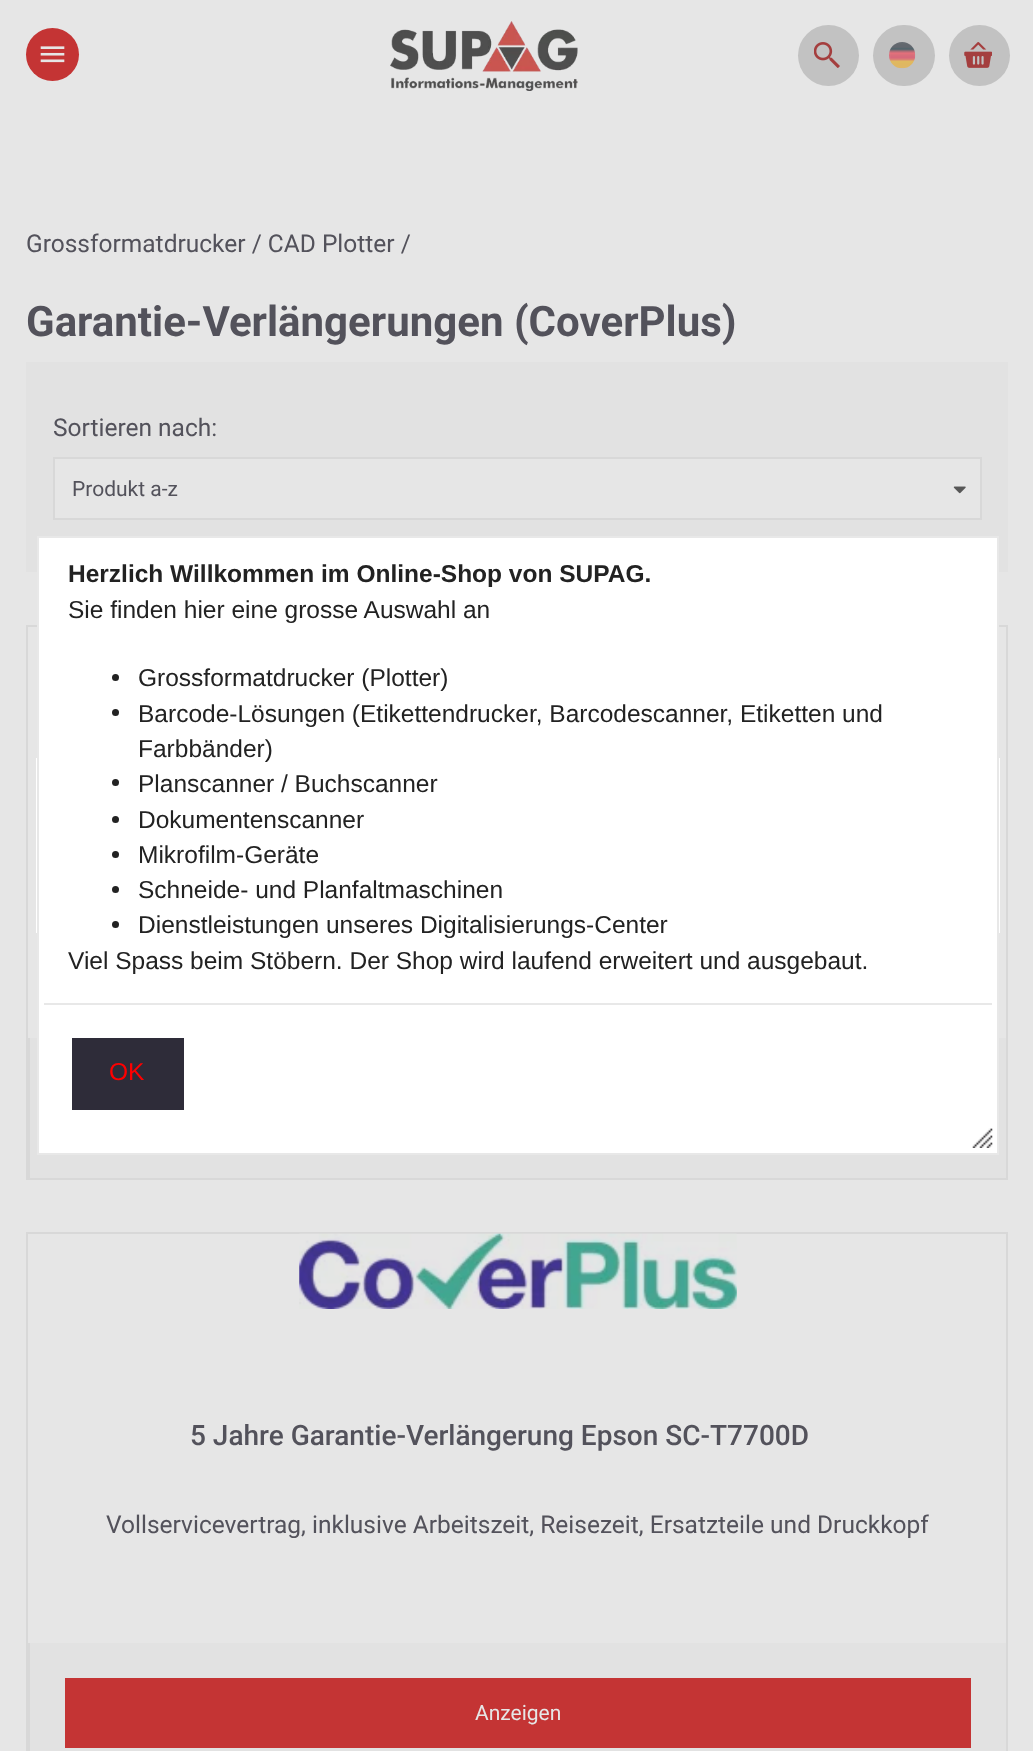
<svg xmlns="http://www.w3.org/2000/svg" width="1033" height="1751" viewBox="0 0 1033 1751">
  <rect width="100%" height="100%" fill="rgb(230,230,230)"/>
  <circle cx="52.5" cy="54.5" r="26.5" fill="rgb(196,52,52)"/>
  <image x="40" y="46" width="25" height="17" href="pic1.png"/>
  <image x="390" y="21" width="188" height="70" href="pic2.png"/>
  <circle cx="828.5" cy="55.5" r="30.5" fill="rgb(194,194,194)"/>
  <image x="814" y="42" width="26" height="26" href="pic3.png"/>
  <rect x="873" y="25" width="62" height="61" rx="30.5" fill="rgb(194,194,194)"/>
  <image x="889" y="42" width="27" height="27" href="pic4.png"/>
  <circle cx="979.5" cy="55.5" r="30.5" fill="rgb(194,194,194)"/>
  <image x="964" y="42" width="28" height="26" href="pic5.png"/>
  <text x="26" y="252" font-family="Roboto" font-size="24.5" fill="rgb(83,82,91)">Grossformatdrucker / CAD Plotter /</text>
  <text x="26" y="336" font-family="Roboto" font-size="42" font-weight="bold" fill="rgb(83,82,91)">Garantie-Verlängerungen (CoverPlus)</text>
  <rect x="26" y="362" width="982" height="210" fill="rgb(226,226,226)"/>
  <text x="53" y="436" font-family="Roboto" font-size="24.5" fill="rgb(83,82,91)">Sortieren nach:</text>
  <rect x="54" y="458" width="927" height="61" fill="rgb(230,230,230)" stroke="rgb(216,216,216)" stroke-width="2"/>
  <text x="72" y="496" font-family="Roboto" font-size="21" fill="rgb(83,82,91)">Produkt a-z</text>
  <image x="953" y="486" width="13" height="8" href="pic6.png"/>
  <rect x="27" y="626" width="980" height="553" fill="none" stroke="rgb(216,216,216)" stroke-width="2"/>
  <rect x="30" y="1038" width="976" height="140" fill="rgb(226,226,226)"/>
  <rect x="28" y="1038" width="2" height="140" fill="rgb(216,216,216)"/>
  <rect x="27" y="1233" width="980" height="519" fill="none" stroke="rgb(216,216,216)" stroke-width="2"/>
  <image x="299" y="1233" width="438" height="76" href="pic7.png"/>
  <text x="190" y="1445" font-family="Roboto" font-size="28" font-weight="500" fill="rgb(83,82,91)">5 Jahre Garantie-Verlängerung Epson SC-T7700D</text>
  <text x="106" y="1533" font-family="Roboto" font-size="24.5" fill="rgb(83,82,91)">Vollservicevertrag, inklusive Arbeitszeit, Reisezeit, Ersatzteile und Druckkopf</text>
  <rect x="30" y="1643" width="976" height="108" fill="rgb(226,226,226)"/>
  <rect x="28" y="1643" width="2" height="108" fill="rgb(216,216,216)"/>
  <rect x="65" y="1678" width="906" height="70" fill="rgb(196,52,52)"/>
  <text x="475" y="1720" font-family="Roboto" font-size="21" fill="rgb(230,230,230)">Anzeigen</text>
  <rect x="39" y="538" width="958" height="615" fill="rgb(255,255,255)"/>
  <rect x="36" y="758" width="964" height="175" fill="rgb(255,255,255)"/>
  <rect x="38" y="537" width="960" height="617" fill="none" stroke="rgb(232,232,232)" stroke-width="2"/>
  <text x="68" y="582" font-family="Liberation Sans" font-size="24.5" font-weight="bold" fill="rgb(34,34,34)">Herzlich Willkommen im Online-Shop von SUPAG.</text>
  <text x="68" y="618" font-family="Liberation Sans" font-size="24.5" fill="rgb(34,34,34)">Sie finden hier eine grosse Auswahl an</text>
  <circle cx="115.5" cy="677.5" r="3.5" fill="rgb(34,34,34)"/>
  <text x="138" y="686" font-family="Liberation Sans" font-size="24.5" fill="rgb(34,34,34)">Grossformatdrucker (Plotter)</text>
  <circle cx="115.5" cy="712.5" r="3.5" fill="rgb(34,34,34)"/>
  <g font-family="Liberation Sans" font-size="24.5" fill="rgb(34,34,34)">
    <text>
      <tspan x="138" y="722">Barcode-Lösungen (Etikettendrucker, Barcodescanner, Etiketten und</tspan>
      <tspan x="138" y="757">Farbbänder)</tspan>
    </text>
  </g>
  <circle cx="115.5" cy="782.5" r="3.5" fill="rgb(34,34,34)"/>
  <text x="138" y="792" font-family="Liberation Sans" font-size="24.5" fill="rgb(34,34,34)">Planscanner / Buchscanner</text>
  <circle cx="115.5" cy="819.5" r="3.5" fill="rgb(34,34,34)"/>
  <text x="138" y="828" font-family="Liberation Sans" font-size="24.5" fill="rgb(34,34,34)">Dokumentenscanner</text>
  <circle cx="115.5" cy="854.5" r="3.5" fill="rgb(34,34,34)"/>
  <text x="138" y="863" font-family="Liberation Sans" font-size="24.5" fill="rgb(34,34,34)">Mikrofilm-Geräte</text>
  <circle cx="115.5" cy="889.5" r="3.5" fill="rgb(34,34,34)"/>
  <text x="138" y="898" font-family="Liberation Sans" font-size="24.5" fill="rgb(34,34,34)">Schneide- und Planfaltmaschinen</text>
  <circle cx="115.5" cy="924.5" r="3.5" fill="rgb(34,34,34)"/>
  <g font-family="Liberation Sans" font-size="24.5" fill="rgb(34,34,34)">
    <text x="138" y="933">Dienstleistungen unseres Digitalisierungs-Center</text>
    <text x="68" y="969">Viel Spass beim Stöbern. Der Shop wird laufend erweitert und ausgebaut.</text>
  </g>
  <rect x="44" y="1003" width="948" height="2" fill="rgb(232,232,232)"/>
  <rect x="72" y="1038" width="112" height="72" fill="rgb(46,44,57)"/>
  <text x="109" y="1080" font-family="Liberation Sans" font-size="24.5" fill="rgb(255,0,0)">OK</text>
  <image x="972" y="1128" width="21" height="20" href="pic8.png"/>
</svg>
